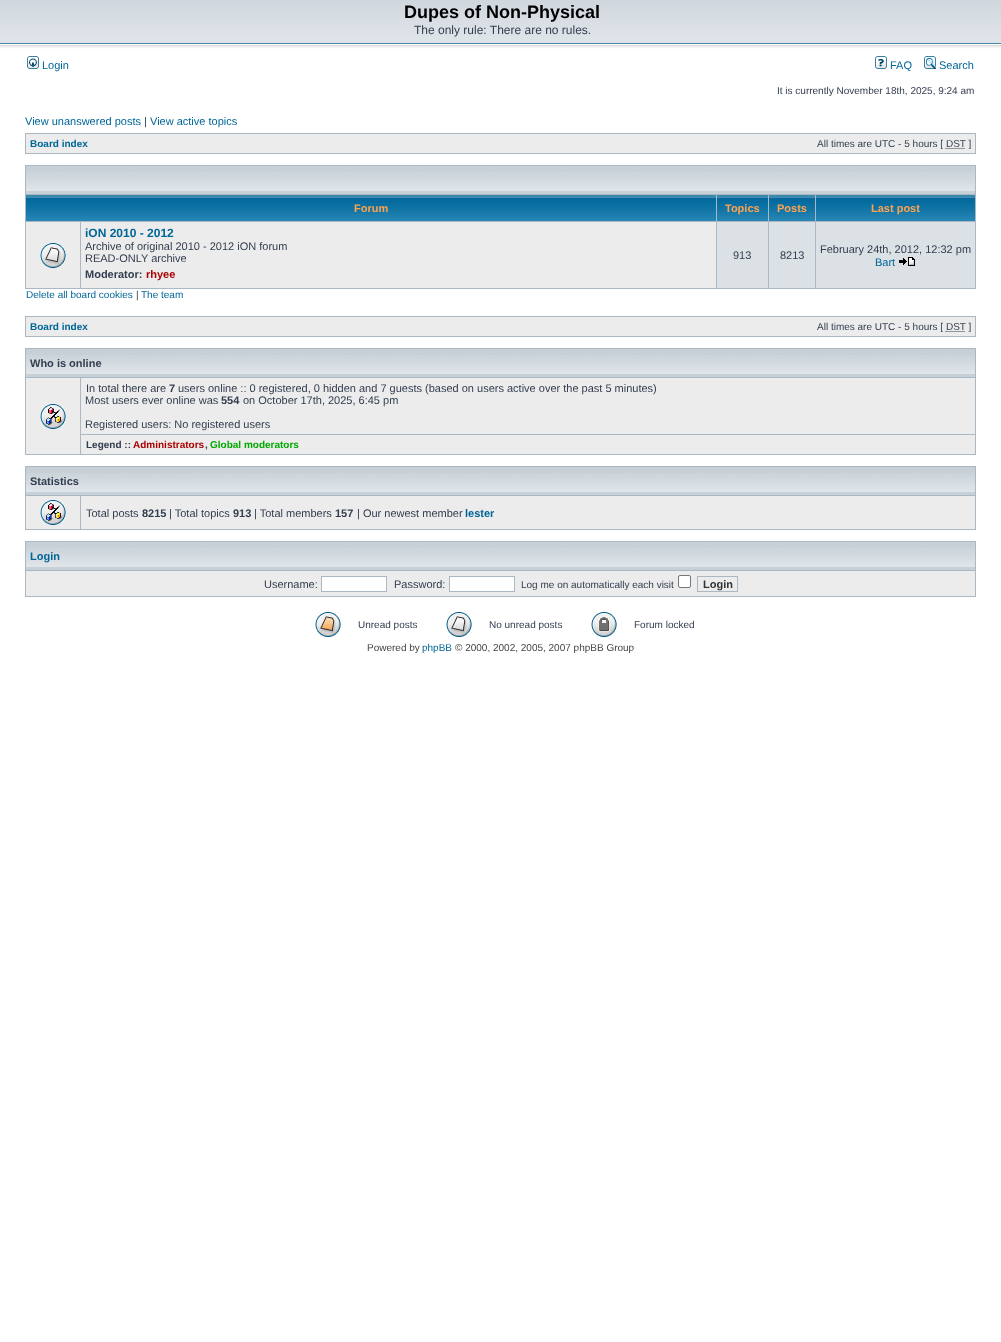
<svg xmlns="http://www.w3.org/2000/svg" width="1001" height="1342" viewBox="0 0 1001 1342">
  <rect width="100%" height="100%" fill="rgb(255,255,255)"/>
  <image x="0" y="0" width="1001" height="54" href="pic1.png"/>
  <text x="404" y="18" font-family="Liberation Sans" font-size="18" font-weight="bold" fill="rgb(0,0,0)">Dupes of Non-Physical</text>
  <text x="414" y="34" font-family="Liberation Sans" font-size="12" fill="rgb(50,61,79)">The only rule: There are no rules.</text>
  <image x="27" y="56" width="12" height="13" href="pic2.png"/>
  <text x="42" y="69" font-family="Liberation Sans" font-size="11" fill="rgb(0,101,151)">Login</text>
  <image x="875" y="56" width="12" height="13" href="pic3.png"/>
  <text x="890" y="69" font-family="Liberation Sans" font-size="11" fill="rgb(0,101,151)">FAQ</text>
  <image x="924" y="56" width="12" height="13" href="pic4.png"/>
  <text x="939" y="69" font-family="Liberation Sans" font-size="11" fill="rgb(0,101,151)">Search</text>
  <text x="777" y="94" font-family="Liberation Sans" font-size="10" fill="rgb(50,61,79)">It is currently November 18th, 2025, 9:24 am</text>
  <text x="25" y="125" font-family="Liberation Sans" font-size="11" fill="rgb(0,101,151)">View unanswered posts</text>
  <text x="144" y="125" font-family="Liberation Sans" font-size="11" fill="rgb(50,61,79)">|</text>
  <text x="150" y="125" font-family="Liberation Sans" font-size="11" fill="rgb(0,101,151)">View active topics</text>
  <rect x="25" y="133" width="951" height="21" fill="rgb(169,184,194)"/>
  <rect x="26" y="134" width="949" height="19" fill="rgb(236,236,236)"/>
  <text x="30" y="147" font-family="Liberation Sans" font-size="10" font-weight="bold" fill="rgb(0,101,151)">Board index</text>
  <text x="817" y="147" font-family="Liberation Sans" font-size="10" fill="rgb(50,61,79)">All times are UTC - 5 hours [ DST ]</text>
  <path d="M945.5 148.5H965.5" fill="none" stroke="rgb(50,61,79)" stroke-dasharray="1 1"/>
  <rect x="25" y="165" width="951" height="124" fill="rgb(169,184,194)"/>
  <rect x="26" y="166" width="949" height="28" fill="rgb(199,208,215)"/>
  <image x="26" y="172" width="949" height="19" href="pic5.png"/>
  <image x="26" y="195" width="690" height="26" href="pic6.png"/>
  <text x="354" y="212" font-family="Liberation Sans" font-size="11" font-weight="bold" fill="rgb(255,163,79)">Forum</text>
  <image x="717" y="195" width="51" height="26" href="pic7.png"/>
  <text x="725" y="212" font-family="Liberation Sans" font-size="11" font-weight="bold" fill="rgb(255,163,79)">Topics</text>
  <image x="769" y="195" width="46" height="26" href="pic8.png"/>
  <text x="777" y="212" font-family="Liberation Sans" font-size="11" font-weight="bold" fill="rgb(255,163,79)">Posts</text>
  <image x="816" y="195" width="159" height="26" href="pic9.png"/>
  <text x="871" y="212" font-family="Liberation Sans" font-size="11" font-weight="bold" fill="rgb(255,163,79)">Last post</text>
  <rect x="26" y="222" width="54" height="66" fill="rgb(236,236,236)"/>
  <image x="40" y="243" width="26" height="25" href="pic10.png"/>
  <rect x="81" y="222" width="635" height="66" fill="rgb(236,236,236)"/>
  <text x="85" y="237" font-family="Liberation Sans" font-size="12" font-weight="bold" fill="rgb(0,101,151)">iON 2010 - 2012</text>
  <g font-family="Liberation Sans" font-size="11" fill="rgb(50,61,79)">
    <text>
      <tspan x="85" y="250">Archive of original 2010 - 2012 iON forum</tspan>
      <tspan x="85" y="262">READ-ONLY archive</tspan>
    </text>
  </g>
  <text x="85" y="278" font-family="Liberation Sans" font-size="11" font-weight="bold" fill="rgb(50,61,79)">Moderator:</text>
  <text x="146" y="278" font-family="Liberation Sans" font-size="11" font-weight="bold" fill="rgb(170,0,0)">rhyee</text>
  <rect x="717" y="222" width="51" height="66" fill="rgb(220,225,229)"/>
  <text x="733" y="259" font-family="Liberation Sans" font-size="11" fill="rgb(50,61,79)">913</text>
  <rect x="769" y="222" width="46" height="66" fill="rgb(220,225,229)"/>
  <text x="780" y="259" font-family="Liberation Sans" font-size="11" fill="rgb(50,61,79)">8213</text>
  <rect x="816" y="222" width="159" height="66" fill="rgb(220,225,229)"/>
  <text x="820" y="253" font-family="Liberation Sans" font-size="11" fill="rgb(50,61,79)">February 24th, 2012, 12:32 pm</text>
  <text x="875" y="266" font-family="Liberation Sans" font-size="11" fill="rgb(0,101,151)">Bart</text>
  <image x="899" y="257" width="16" height="9" href="pic11.png"/>
  <text x="26" y="298" font-family="Liberation Sans" font-size="10" fill="rgb(0,101,151)">Delete all board cookies</text>
  <text x="136" y="298" font-family="Liberation Sans" font-size="10" fill="rgb(50,61,79)">|</text>
  <text x="141" y="298" font-family="Liberation Sans" font-size="10" fill="rgb(0,101,151)">The team</text>
  <rect x="25" y="316" width="951" height="21" fill="rgb(169,184,194)"/>
  <rect x="26" y="317" width="949" height="19" fill="rgb(236,236,236)"/>
  <text x="30" y="330" font-family="Liberation Sans" font-size="10" font-weight="bold" fill="rgb(0,101,151)">Board index</text>
  <text x="817" y="330" font-family="Liberation Sans" font-size="10" fill="rgb(50,61,79)">All times are UTC - 5 hours [ DST ]</text>
  <path d="M945.5 331.5H965.5" fill="none" stroke="rgb(50,61,79)" stroke-dasharray="1 1"/>
  <rect x="25" y="348" width="951" height="107" fill="rgb(169,184,194)"/>
  <rect x="26" y="349" width="949" height="28" fill="rgb(199,208,215)"/>
  <image x="26" y="355" width="949" height="19" href="pic5.png"/>
  <text x="30" y="367" font-family="Liberation Sans" font-size="11" font-weight="bold" fill="rgb(50,61,79)">Who is online</text>
  <rect x="26" y="378" width="54" height="76" fill="rgb(236,236,236)"/>
  <image x="40" y="404" width="26" height="25" href="pic12.png"/>
  <rect x="81" y="378" width="894" height="56" fill="rgb(236,236,236)"/>
  <text x="86" y="392" font-family="Liberation Sans" font-size="11" fill="rgb(50,61,79)">In total there are</text>
  <text x="169" y="392" font-family="Liberation Sans" font-size="11" font-weight="bold" fill="rgb(50,61,79)">7</text>
  <g font-family="Liberation Sans" font-size="11" fill="rgb(50,61,79)">
    <text x="178" y="392">users online :: 0 registered, 0 hidden and 7 guests (based on users active over the past 5 minutes)</text>
    <text x="85" y="404">Most users ever online was</text>
  </g>
  <text x="221" y="404" font-family="Liberation Sans" font-size="11" font-weight="bold" fill="rgb(50,61,79)">554</text>
  <g font-family="Liberation Sans" font-size="11" fill="rgb(50,61,79)">
    <text x="243" y="404">on October 17th, 2025, 6:45 pm</text>
    <text x="85" y="428">Registered users: No registered users</text>
  </g>
  <rect x="81" y="435" width="894" height="19" fill="rgb(236,236,236)"/>
  <text x="86" y="448" font-family="Liberation Sans" font-size="10" font-weight="bold" fill="rgb(50,61,79)">Legend ::</text>
  <text x="133" y="448" font-family="Liberation Sans" font-size="10" font-weight="bold" fill="rgb(170,0,0)">Administrators</text>
  <text x="205" y="448" font-family="Liberation Sans" font-size="10" font-weight="bold" fill="rgb(50,61,79)">,</text>
  <text x="210" y="448" font-family="Liberation Sans" font-size="10" font-weight="bold" fill="rgb(0,170,0)">Global moderators</text>
  <rect x="25" y="466" width="951" height="64" fill="rgb(169,184,194)"/>
  <rect x="26" y="467" width="949" height="28" fill="rgb(199,208,215)"/>
  <image x="26" y="473" width="949" height="19" href="pic5.png"/>
  <text x="30" y="485" font-family="Liberation Sans" font-size="11" font-weight="bold" fill="rgb(50,61,79)">Statistics</text>
  <rect x="26" y="496" width="54" height="33" fill="rgb(236,236,236)"/>
  <image x="40" y="500" width="26" height="25" href="pic12.png"/>
  <rect x="81" y="496" width="894" height="33" fill="rgb(236,236,236)"/>
  <text x="86" y="517" font-family="Liberation Sans" font-size="11" fill="rgb(50,61,79)">Total posts</text>
  <text x="142" y="517" font-family="Liberation Sans" font-size="11" font-weight="bold" fill="rgb(50,61,79)">8215</text>
  <text x="169" y="517" font-family="Liberation Sans" font-size="11" fill="rgb(50,61,79)">| Total topics</text>
  <text x="233" y="517" font-family="Liberation Sans" font-size="11" font-weight="bold" fill="rgb(50,61,79)">913</text>
  <text x="254" y="517" font-family="Liberation Sans" font-size="11" fill="rgb(50,61,79)">| Total members</text>
  <text x="335" y="517" font-family="Liberation Sans" font-size="11" font-weight="bold" fill="rgb(50,61,79)">157</text>
  <text x="357" y="517" font-family="Liberation Sans" font-size="11" fill="rgb(50,61,79)">| Our newest member</text>
  <text x="465" y="517" font-family="Liberation Sans" font-size="11" font-weight="bold" fill="rgb(0,101,151)">lester</text>
  <rect x="25" y="541" width="951" height="56" fill="rgb(169,184,194)"/>
  <rect x="26" y="542" width="949" height="28" fill="rgb(199,208,215)"/>
  <image x="26" y="548" width="949" height="19" href="pic5.png"/>
  <text x="30" y="560" font-family="Liberation Sans" font-size="11" font-weight="bold" fill="rgb(0,101,151)">Login</text>
  <rect x="26" y="571" width="949" height="25" fill="rgb(236,236,236)"/>
  <text x="264" y="588" font-family="Liberation Sans" font-size="11" fill="rgb(50,61,79)">Username:</text>
  <rect x="321.5" y="576.5" width="65" height="15" fill="rgb(255,255,255)" stroke="rgb(169,184,194)"/>
  <text x="394" y="588" font-family="Liberation Sans" font-size="11" fill="rgb(50,61,79)">Password:</text>
  <rect x="449.5" y="576.5" width="65" height="15" fill="rgb(255,255,255)" stroke="rgb(169,184,194)"/>
  <text x="521" y="588" font-family="Liberation Sans" font-size="10" fill="rgb(50,61,79)">Log me on automatically each visit</text>
  <rect x="678.5" y="575.5" width="12" height="12" rx="1.5" fill="rgb(255,255,255)" stroke="rgb(118,118,118)"/>
  <rect x="697.5" y="576.5" width="40" height="15" fill="none" stroke="rgb(169,184,194)"/>
  <text x="703" y="588" font-family="Liberation Sans" font-size="11" font-weight="bold" fill="rgb(51,51,51)">Login</text>
  <image x="315" y="612" width="26" height="25" href="pic13.png"/>
  <text x="358" y="628" font-family="Liberation Sans" font-size="10" fill="rgb(50,61,79)">Unread posts</text>
  <image x="446" y="612" width="26" height="25" href="pic14.png"/>
  <text x="489" y="628" font-family="Liberation Sans" font-size="10" fill="rgb(50,61,79)">No unread posts</text>
  <image x="591" y="612" width="26" height="25" href="pic15.png"/>
  <text x="634" y="628" font-family="Liberation Sans" font-size="10" fill="rgb(50,61,79)">Forum locked</text>
  <text x="367" y="651" font-family="Liberation Sans" font-size="10" fill="rgb(68,68,68)">Powered by</text>
  <text x="422" y="651" font-family="Liberation Sans" font-size="10" fill="rgb(0,101,151)">phpBB</text>
  <text x="455" y="651" font-family="Liberation Sans" font-size="10" fill="rgb(68,68,68)">© 2000, 2002, 2005, 2007 phpBB Group</text>
</svg>
